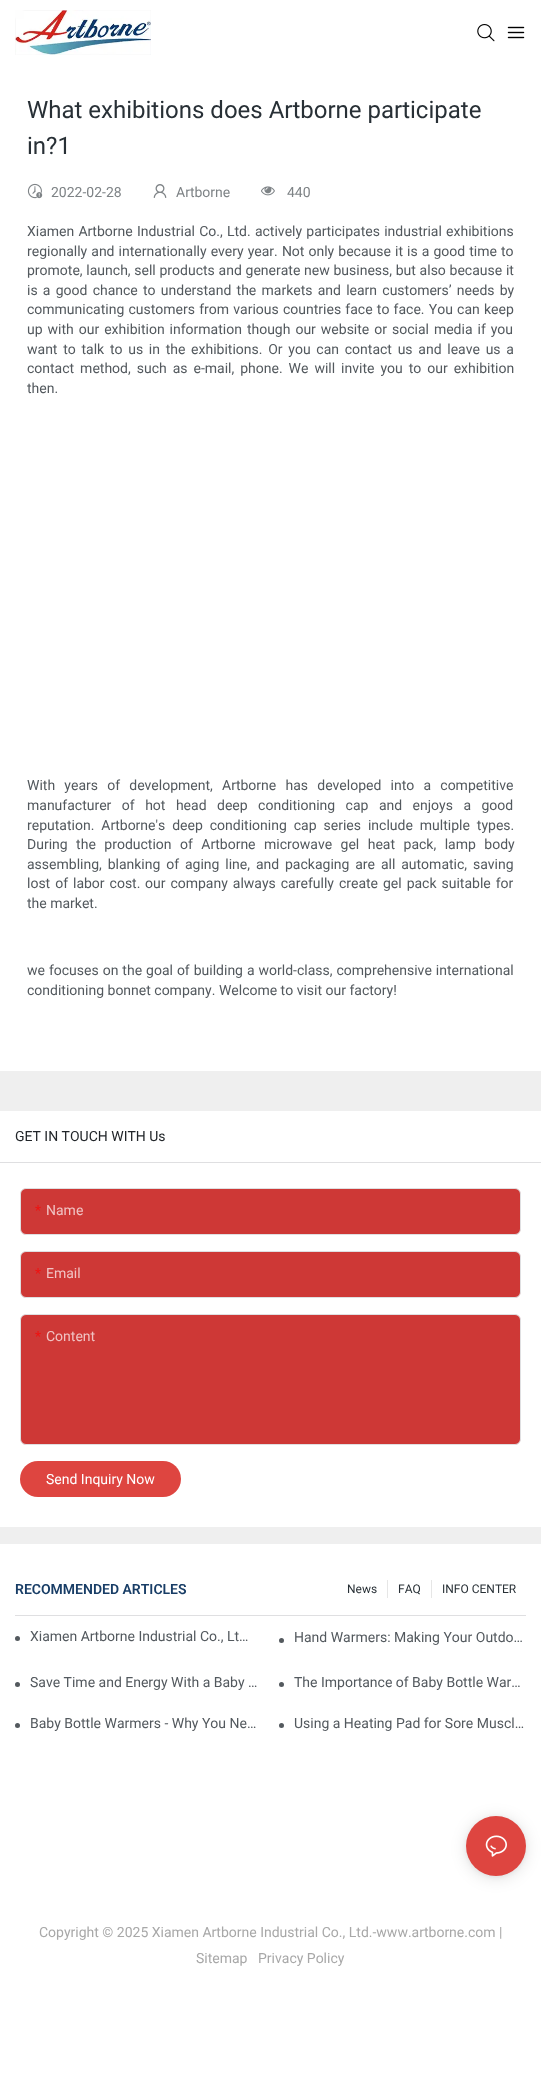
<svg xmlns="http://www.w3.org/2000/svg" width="541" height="2084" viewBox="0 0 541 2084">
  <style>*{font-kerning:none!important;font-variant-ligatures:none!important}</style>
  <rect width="100%" height="100%" fill="rgb(255,255,255)"/>
  <image x="15" y="10" width="136" height="45" href="pic1.png"/>
  <image x="477" y="24" width="18" height="18" href="pic2.png"/>
  <image x="507" y="26" width="18" height="13" href="pic3.png"/>
  <rect x="0" y="1071" width="541" height="473" fill="rgb(239,239,239)"/>
  <g font-family="Roboto" font-size="24" fill="rgb(40,48,54)">
    <text>
      <tspan x="27" y="118">What exhibitions does Artborne participate</tspan>
      <tspan x="27" y="154">in?1</tspan>
    </text>
  </g>
  <image x="27" y="183" width="16" height="16" href="pic4.png"/>
  <text x="51" y="197" font-family="Roboto" font-size="14" fill="rgb(126,131,134)">2022-02-28</text>
  <image x="153" y="184" width="14" height="14" href="pic5.png"/>
  <text x="176" y="197" font-family="Roboto" font-size="14" fill="rgb(126,131,134)">Artborne</text>
  <image x="261" y="186" width="14" height="10" href="pic6.png"/>
  <text x="287" y="197" font-family="Roboto" font-size="14" fill="rgb(126,131,134)">440</text>
  <g font-family="Roboto" font-size="14" fill="rgb(83,89,94)">
    <text>
      <tspan x="27" y="236" word-spacing="0.75">Xiamen Artborne Industrial Co., Ltd. actively participates industrial exhibitions</tspan>
      <tspan x="27" y="256" word-spacing="0.6">regionally and internationally every year. Not only because it is a good time to</tspan>
      <tspan x="27" y="275" word-spacing="0.25">promote, launch, sell products and generate new business, but also because it</tspan>
      <tspan x="27" y="295" word-spacing="1.75">is a good chance to understand the markets and learn customers’ needs by</tspan>
      <tspan x="27" y="314" word-spacing="0.75">communicating customers from various countries face to face. You can keep</tspan>
      <tspan x="27" y="334" word-spacing="1.5">up with our exhibition information though our website or social media if you</tspan>
      <tspan x="27" y="354" word-spacing="2.25">want to talk to us in the exhibitions. Or you can contact us and leave us a</tspan>
      <tspan x="27" y="373" word-spacing="2.5">contact method, such as e-mail, phone. We will invite you to our exhibition</tspan>
      <tspan x="27" y="393">then.</tspan>
    </text>
    <text>
      <tspan x="27" y="790" word-spacing="5.75">With years of development, Artborne has developed into a competitive</tspan>
      <tspan x="27" y="810" word-spacing="7">manufacturer of hot head deep conditioning cap and enjoys a good</tspan>
      <tspan x="27" y="830" word-spacing="3.5">reputation. Artborne's deep conditioning cap series include multiple types.</tspan>
      <tspan x="27" y="849" word-spacing="5">During the production of Artborne microwave gel heat pack, lamp body</tspan>
      <tspan x="27" y="869" word-spacing="2.4">assembling, blanking of aging line, and packaging are all automatic, saving</tspan>
      <tspan x="27" y="888" word-spacing="1.5">lost of labor cost.</tspan>
    </text>
    <text x="145" y="888" word-spacing="1.5">our company always carefully create gel pack suitable for</text>
    <text x="27" y="908">the market.</text>
    <text>
      <tspan x="27" y="975" word-spacing="0.5">we focuses on the goal of building a world-class, comprehensive international</tspan>
      <tspan x="27" y="995">conditioning bonnet company. Welcome to visit our factory!</tspan>
    </text>
  </g>
  <rect x="0" y="1111" width="541" height="416" fill="rgb(255,255,255)"/>
  <rect x="0" y="1162" width="541" height="1" fill="rgb(223,223,225)"/>
  <text x="15" y="1141" font-family="Roboto" font-size="14" fill="rgb(33,37,41)">GET IN TOUCH WITH Us</text>
  <rect x="20.5" y="1188.5" width="500" height="46" rx="5.5" fill="rgb(206,56,54)" stroke="rgb(223,223,225)"/>
  <text x="35" y="1215" font-family="Roboto" font-size="14" fill="rgb(240,17,16)">*</text>
  <text x="46" y="1215" font-family="Roboto" font-size="14" fill="rgb(240,195,195)">Name</text>
  <rect x="20.5" y="1251.5" width="500" height="46" rx="5.5" fill="rgb(206,56,54)" stroke="rgb(223,223,225)"/>
  <text x="35" y="1278" font-family="Roboto" font-size="14" fill="rgb(240,17,16)">*</text>
  <text x="46" y="1278" font-family="Roboto" font-size="14" fill="rgb(240,195,195)">Email</text>
  <rect x="20.5" y="1314.5" width="500" height="130" rx="5.5" fill="rgb(206,56,54)" stroke="rgb(223,223,225)"/>
  <text x="35" y="1341" font-family="Roboto" font-size="14" fill="rgb(240,17,16)">*</text>
  <text x="46" y="1341" font-family="Roboto" font-size="14" fill="rgb(240,195,195)">Content</text>
  <rect x="20" y="1461" width="161" height="36" rx="18" fill="rgb(222,69,64)"/>
  <text x="46" y="1484" font-family="Roboto" font-size="14" fill="rgb(255,255,255)">Send Inquiry Now</text>
  <rect x="15" y="1615" width="511" height="1" fill="rgb(223,223,225)"/>
  <text x="15" y="1594" font-family="Roboto" font-size="14" font-weight="600" fill="rgb(24,61,102)">RECOMMENDED ARTICLES</text>
  <text x="347" y="1593" font-family="Roboto" font-size="12" fill="rgb(40,48,54)">News</text>
  <rect x="387" y="1580" width="1" height="18" fill="rgb(230,230,230)"/>
  <text x="398" y="1593" font-family="Roboto" font-size="12" fill="rgb(40,48,54)">FAQ</text>
  <rect x="431" y="1580" width="1" height="18" fill="rgb(230,230,230)"/>
  <text x="442" y="1593" font-family="Roboto" font-size="12" fill="rgb(40,48,54)">INFO CENTER</text>
  <circle cx="17.5" cy="1638.5" r="1.5" fill="rgb(92,92,92)" stroke="rgb(83,89,94)" stroke-width="2"/>
  <text x="30" y="1641" font-family="Roboto" font-size="14" fill="rgb(83,89,94)">Xiamen Artborne Industrial Co., Lt…</text>
  <circle cx="281.5" cy="1640.5" r="1.5" fill="rgb(92,92,92)" stroke="rgb(83,89,94)" stroke-width="2"/>
  <text x="294" y="1642" font-family="Roboto" font-size="14" fill="rgb(83,89,94)">Hand Warmers: Making Your Outdo…</text>
  <circle cx="17.5" cy="1684.5" r="1.5" fill="rgb(92,92,92)" stroke="rgb(83,89,94)" stroke-width="2"/>
  <text x="30" y="1687" font-family="Roboto" font-size="14" fill="rgb(83,89,94)">Save Time and Energy With a Baby …</text>
  <circle cx="281.5" cy="1684.5" r="1.5" fill="rgb(92,92,92)" stroke="rgb(83,89,94)" stroke-width="2"/>
  <text x="294" y="1687" font-family="Roboto" font-size="14" fill="rgb(83,89,94)">The Importance of Baby Bottle War…</text>
  <circle cx="17.5" cy="1725.5" r="1.5" fill="rgb(92,92,92)" stroke="rgb(83,89,94)" stroke-width="2"/>
  <text x="30" y="1728" font-family="Roboto" font-size="14" fill="rgb(83,89,94)">Baby Bottle Warmers - Why You Ne…</text>
  <circle cx="281.5" cy="1725.5" r="1.5" fill="rgb(92,92,92)" stroke="rgb(83,89,94)" stroke-width="2"/>
  <text x="294" y="1728" font-family="Roboto" font-size="14" fill="rgb(83,89,94)">Using a Heating Pad for Sore Muscl…</text>
  <g font-family="Roboto" font-size="14" fill="rgb(168,168,168)">
    <text x="39" y="1937">Copyright © 2025 Xiamen Artborne Industrial Co., Ltd.-www.artborne.com |</text>
    <text x="196" y="1963">Sitemap</text>
    <text x="258" y="1963">Privacy Policy</text>
  </g>
  <rect x="466" y="1818" width="60" height="60" rx="30" fill="rgba(0,0,0,0.12)" filter="blur(8px)"/>
  <rect x="466" y="1817" width="60" height="60" rx="30" fill="rgba(0,0,0,0.06)" filter="blur(2px)"/>
  <circle cx="496" cy="1846" r="30" fill="rgb(222,69,64)"/>
  <image x="485" y="1835" width="22" height="22" href="pic7.png"/>
</svg>
